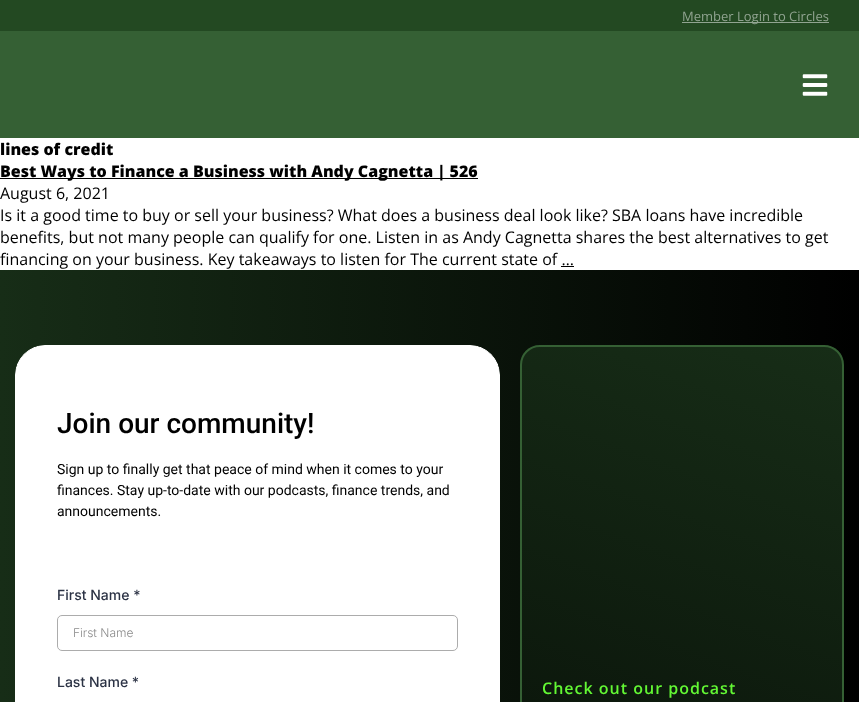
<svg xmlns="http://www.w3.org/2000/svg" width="859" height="702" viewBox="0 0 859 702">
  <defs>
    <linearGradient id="g1" gradientUnits="userSpaceOnUse" x1="0" y1="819" x2="859" y2="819"><stop offset="0" stop-color="rgb(23,45,23)"/><stop offset="1" stop-color="rgb(0,0,0)"/></linearGradient>
    <clipPath id="clip1"><rect x="520" y="345" width="324" height="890" rx="20"/></clipPath>
    <linearGradient id="g2" gradientUnits="userSpaceOnUse" x1="843" y1="347" x2="521" y2="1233"><stop offset="0" stop-color="rgb(23,45,23)"/><stop offset="1" stop-color="rgb(0,0,0)"/></linearGradient>
  </defs>
  <rect width="100%" height="100%" fill="rgb(255,255,255)"/>
  <rect x="0" y="0" width="859" height="31" fill="rgb(35,73,34)"/>
  <rect x="682" y="22" width="147" height="1" fill="rgb(145,164,145)"/>
  <text x="682" y="21" font-family="Open Sans" font-size="13" fill="rgb(145,164,145)">Member Login to Circles</text>
  <rect x="0" y="31" width="859" height="107" fill="rgb(53,96,52)"/>
  <image x="802" y="74" width="26" height="22" href="pic1.png"/>
  <text x="0" y="155" font-family="Open Sans" font-size="16" font-weight="800" fill="rgb(0,0,0)">lines of credit</text>
  <rect x="0" y="178" width="478" height="1" fill="rgb(0,0,0)"/>
  <text x="0" y="177" font-family="Open Sans" font-size="16" font-weight="800" fill="rgb(0,0,0)">Best Ways to Finance a Business with Andy Cagnetta | 526</text>
  <g font-family="Open Sans" font-size="16" fill="rgb(0,0,0)">
    <text>
      <tspan x="0" y="199">August 6, 2021</tspan>
      <tspan x="0" y="221">Is it a good time to buy or sell your business? What does a business deal look like? SBA loans have incredible</tspan>
      <tspan x="0" y="243">benefits, but not many people can qualify for one. Listen in as Andy Cagnetta shares the best alternatives to get</tspan>
      <tspan x="0" y="265">financing on your business. Key takeaways to listen for The current state of …</tspan>
    </text>
  </g>
  <rect x="561" y="266" width="13" height="1" fill="rgb(0,0,0)"/>
  <rect x="0" y="270" width="859" height="432" fill="url(#g1)"/>
  <image x="15" y="345" width="485" height="357" href="pic2.png"/>
  <g clip-path="url(#clip1)">
    <rect x="522" y="347" width="320" height="355" fill="url(#g2)"/>
  </g>
  <rect x="521" y="346" width="322" height="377" rx="19" fill="none" stroke="rgb(53,96,52)" stroke-width="2"/>
  <text x="542" y="694" font-family="Open Sans" font-size="16" font-weight="600" letter-spacing="1" fill="rgb(99,248,52)">Check out our podcast</text>
</svg>
